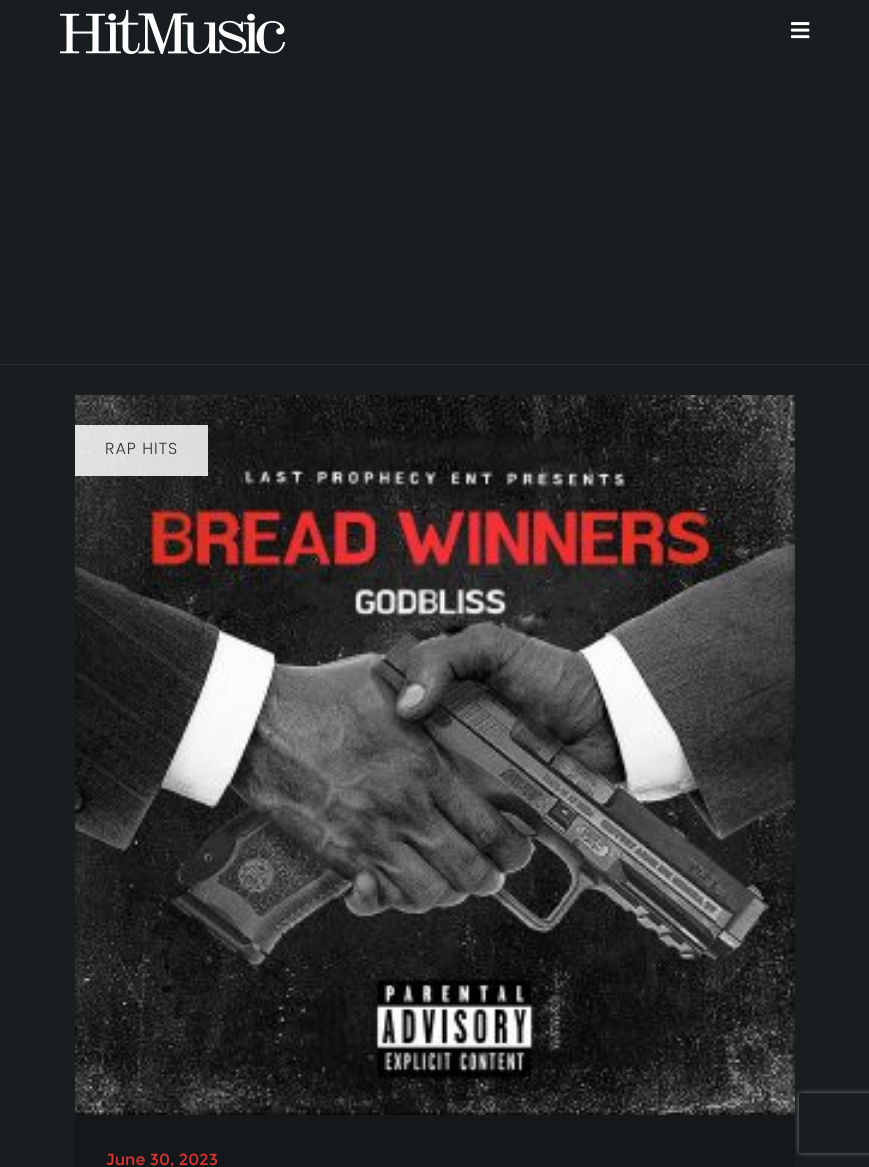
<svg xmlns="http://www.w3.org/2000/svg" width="869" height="1167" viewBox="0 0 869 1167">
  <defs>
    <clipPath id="clip1"><path d="M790 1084H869V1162H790ZM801 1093H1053C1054 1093 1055 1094 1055 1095V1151C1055 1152 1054 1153 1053 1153H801C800 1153 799 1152 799 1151V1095C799 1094 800 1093 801 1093Z" clip-rule="evenodd"/></clipPath>
  </defs>
  <rect width="100%" height="100%" fill="rgb(24,29,32)"/>
  <rect x="0" y="364" width="869" height="1" fill="rgb(47,47,47)"/>
  <image x="60" y="10" width="225" height="44" href="pic1.png"/>
  <image x="791" y="22" width="19" height="17" href="pic2.png"/>
  <image x="75" y="395" width="720" height="720" href="pic3.png"/>
  <rect x="75" y="425" width="133" height="51" fill="rgba(255,255,255,0.85)"/>
  <text x="105" y="454" font-family="Poppins" font-size="16" font-weight="300" letter-spacing="1" fill="rgb(51,51,51)">RAP HITS</text>
  <rect x="75" y="1115" width="720" height="52" fill="rgb(20,24,27)"/>
  <text x="106" y="1165" font-family="Montserrat" font-size="16" fill="rgb(221,51,51)">June 30, 2023</text>
  <g clip-path="url(#clip1)">
    <rect x="799" y="1093" width="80" height="60" rx="2" fill="rgb(128,128,128)" filter="blur(2.5px)"/>
  </g>
</svg>
